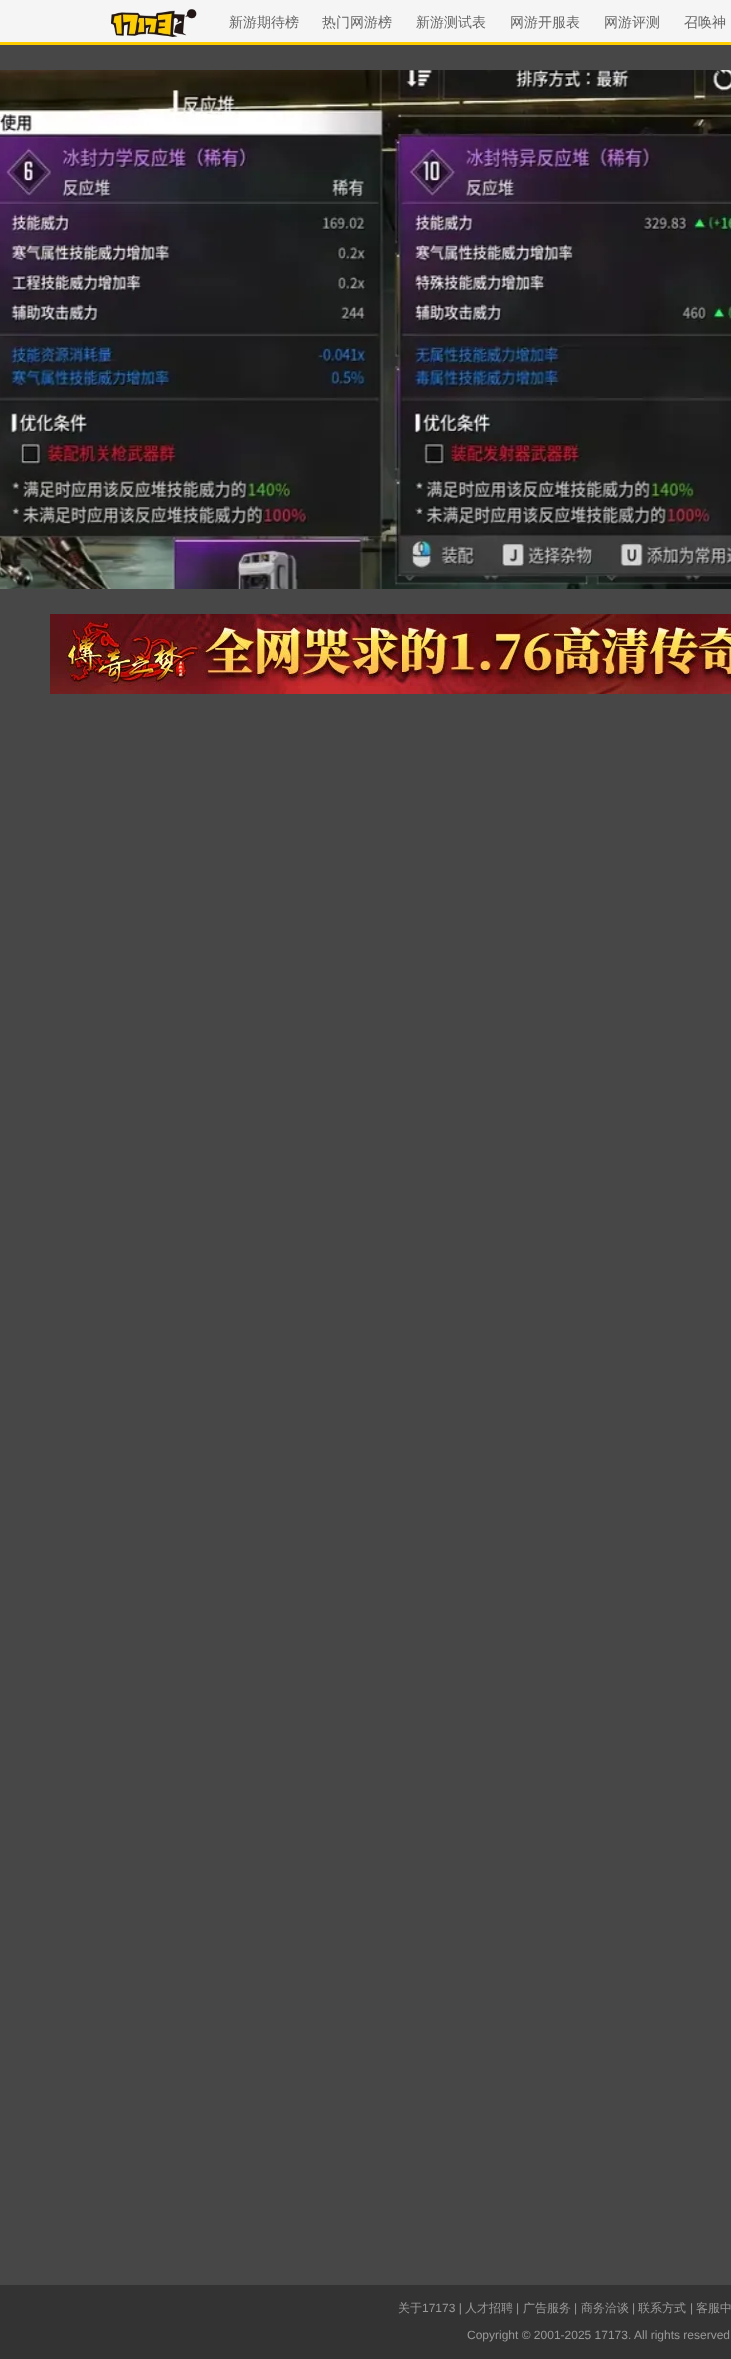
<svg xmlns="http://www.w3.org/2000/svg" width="731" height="2359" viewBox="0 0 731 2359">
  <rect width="100%" height="100%" fill="rgb(71,71,71)"/>
  <rect x="0" y="0" width="731" height="42" fill="rgb(245,245,245)"/>
  <rect x="0" y="42" width="731" height="3" fill="rgb(255,205,0)"/>
  <image x="111" y="9" width="86" height="28" href="pic1.png"/>
  <g font-family="WenQuanYi Zen Hei" font-size="14" font-weight="500" fill="rgb(102,102,102)">
    <text x="229" y="27">新游期待榜</text>
    <text x="322" y="27">热门网游榜</text>
    <text x="416" y="27">新游测试表</text>
    <text x="510" y="27">网游开服表</text>
    <text x="604" y="27">网游评测</text>
    <text x="684" y="27">召唤神</text>
  </g>
  <image x="0" y="70" width="731" height="519" href="pic2.png"/>
  <image x="50" y="614" width="681" height="80" href="pic3.png"/>
  <rect x="0" y="2285" width="731" height="74" fill="rgb(51,51,51)"/>
  <text x="398" y="2312" font-family="WenQuanYi Zen Hei" font-size="12" font-weight="500" fill="rgb(153,153,153)">关于</text>
  <text x="422" y="2312" font-family="Liberation Sans" font-size="12" fill="rgb(153,153,153)">17173 |</text>
  <text x="465" y="2312" font-family="WenQuanYi Zen Hei" font-size="12" font-weight="500" fill="rgb(153,153,153)">人才招聘</text>
  <text x="516" y="2312" font-family="Liberation Sans" font-size="12" fill="rgb(153,153,153)">|</text>
  <text x="523" y="2312" font-family="WenQuanYi Zen Hei" font-size="12" font-weight="500" fill="rgb(153,153,153)">广告服务</text>
  <text x="574" y="2312" font-family="Liberation Sans" font-size="12" fill="rgb(153,153,153)">|</text>
  <text x="581" y="2312" font-family="WenQuanYi Zen Hei" font-size="12" font-weight="500" fill="rgb(153,153,153)">商务洽谈</text>
  <text x="632" y="2312" font-family="Liberation Sans" font-size="12" fill="rgb(153,153,153)">|</text>
  <text x="638" y="2312" font-family="WenQuanYi Zen Hei" font-size="12" font-weight="500" fill="rgb(153,153,153)">联系方式</text>
  <text x="690" y="2312" font-family="Liberation Sans" font-size="12" fill="rgb(153,153,153)">|</text>
  <text x="696" y="2312" font-family="WenQuanYi Zen Hei" font-size="12" font-weight="500" fill="rgb(153,153,153)">客服中</text>
  <text x="467" y="2339" font-family="Liberation Sans" font-size="12" fill="rgb(153,153,153)">Copyright © 2001-2025 17173. All rights reserved</text>
</svg>
